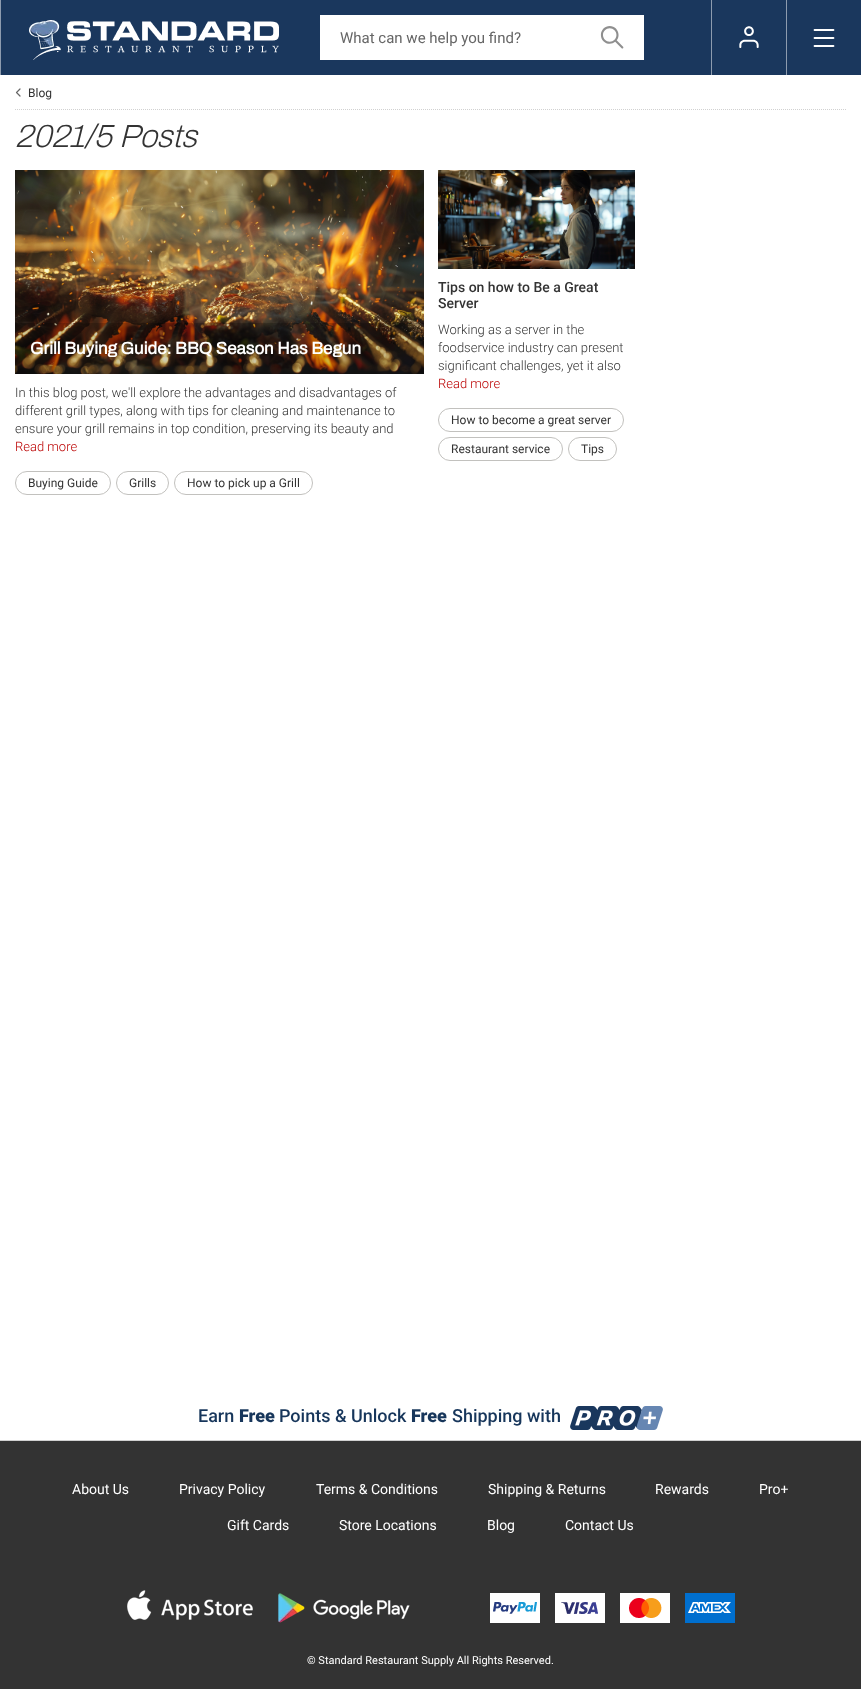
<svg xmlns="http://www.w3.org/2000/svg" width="861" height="1689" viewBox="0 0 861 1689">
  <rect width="100%" height="100%" fill="rgb(255,255,255)"/>
  <rect x="1" y="0" width="860" height="75" fill="rgb(26,55,93)"/>
  <rect x="0" y="0" width="1" height="75" fill="rgb(141,155,174)"/>
  <image x="29" y="20" width="250" height="40" href="pic1.png"/>
  <rect x="320" y="15" width="324" height="45" fill="rgb(255,255,255)"/>
  <text x="340" y="43" font-family="Roboto" font-size="15" fill="rgb(102,102,102)">What can we help you find?</text>
  <image x="600" y="26" width="24" height="23" href="pic2.png"/>
  <rect x="711" y="0" width="1" height="75" fill="rgb(141,155,174)"/>
  <image x="739" y="26" width="20" height="22" href="pic3.png"/>
  <rect x="786" y="0" width="1" height="75" fill="rgb(141,155,174)"/>
  <image x="813" y="29" width="22" height="18" href="pic4.png"/>
  <path d="M15 109.5H846" fill="none" stroke="rgb(209,209,209)" stroke-dasharray="1 1"/>
  <path d="M20 96L16.5 92.5L20 89" fill="none" stroke="rgb(102,102,102)" stroke-width="1.2" stroke-linecap="round" stroke-linejoin="round"/>
  <text x="28" y="97" font-family="Roboto" font-size="12" fill="rgb(51,51,51)">Blog</text>
  <text x="15" y="147" font-family="Archivo" font-size="32" font-weight="200" font-style="italic" fill="rgb(51,51,51)">2021/5 Posts</text>
  <image x="15" y="170" width="409" height="204" href="pic5.png"/>
  <rect x="15" y="323" width="409" height="51" fill="rgba(0,0,0,0.18)"/>
  <text x="30" y="354" font-family="Archivo" font-size="17" font-weight="bold" fill="rgb(255,255,255)">Grill Buying Guide: BBQ Season Has Begun</text>
  <g font-family="Roboto" font-size="13" font-weight="300" fill="rgb(51,51,51)">
    <text>
      <tspan x="15" y="397">In this blog post, we'll explore the advantages and disadvantages of</tspan>
      <tspan x="15" y="415">different grill types, along with tips for cleaning and maintenance to</tspan>
      <tspan x="15" y="433">ensure your grill remains in top condition, preserving its beauty and</tspan>
    </text>
  </g>
  <text x="15" y="451" font-family="Roboto" font-size="13" font-weight="300" fill="rgb(187,0,0)">Read more</text>
  <rect x="15.5" y="471.5" width="95" height="23" rx="11.5" fill="none" stroke="rgb(194,193,190)"/>
  <text x="28" y="487" font-family="Roboto" font-size="12" fill="rgb(51,51,51)">Buying Guide</text>
  <rect x="116.5" y="471.5" width="52" height="23" rx="11.5" fill="none" stroke="rgb(194,193,190)"/>
  <text x="129" y="487" font-family="Roboto" font-size="12" fill="rgb(51,51,51)">Grills</text>
  <rect x="174.5" y="471.5" width="138" height="23" rx="11.5" fill="none" stroke="rgb(194,193,190)"/>
  <text x="187" y="487" font-family="Roboto" font-size="12" fill="rgb(51,51,51)">How to pick up a Grill</text>
  <image x="438" y="170" width="197" height="99" href="pic6.png"/>
  <g font-family="Roboto" font-size="14" font-weight="500" fill="rgb(51,51,51)">
    <text>
      <tspan x="438" y="292">Tips on how to Be a Great</tspan>
      <tspan x="438" y="308">Server</tspan>
    </text>
  </g>
  <g font-family="Roboto" font-size="13" font-weight="300" fill="rgb(51,51,51)">
    <text>
      <tspan x="438" y="334">Working as a server in the</tspan>
      <tspan x="438" y="352">foodservice industry can present</tspan>
      <tspan x="438" y="370">significant challenges, yet it also</tspan>
    </text>
  </g>
  <text x="438" y="388" font-family="Roboto" font-size="13" font-weight="300" fill="rgb(187,0,0)">Read more</text>
  <rect x="438.5" y="408.5" width="185" height="23" rx="11.5" fill="none" stroke="rgb(194,193,190)"/>
  <text x="451" y="424" font-family="Roboto" font-size="12" fill="rgb(51,51,51)">How to become a great server</text>
  <rect x="438.5" y="437.5" width="124" height="23" rx="11.5" fill="none" stroke="rgb(194,193,190)"/>
  <text x="451" y="453" font-family="Roboto" font-size="12" fill="rgb(51,51,51)">Restaurant service</text>
  <rect x="568.5" y="437.5" width="48" height="23" rx="11.5" fill="none" stroke="rgb(194,193,190)"/>
  <text x="581" y="453" font-family="Roboto" font-size="12" fill="rgb(51,51,51)">Tips</text>
  <rect x="0" y="1440" width="861" height="1" fill="rgb(209,209,209)"/>
  <text x="198" y="1422" font-family="Roboto" font-size="18" font-weight="500" fill="rgb(23,54,91)">Earn</text>
  <text x="239" y="1422" font-family="Roboto" font-size="18" font-weight="900" fill="rgb(23,54,91)">Free</text>
  <text x="279" y="1422" font-family="Roboto" font-size="18" font-weight="500" fill="rgb(23,54,91)">Points &amp; Unlock</text>
  <text x="411" y="1422" font-family="Roboto" font-size="18" font-weight="900" fill="rgb(23,54,91)">Free</text>
  <text x="452" y="1422" font-family="Roboto" font-size="18" font-weight="500" fill="rgb(23,54,91)">Shipping with</text>
  <image x="570" y="1406" width="93" height="24" href="pic7.png"/>
  <rect x="0" y="1441" width="861" height="248" fill="rgb(51,51,51)"/>
  <g font-family="Roboto" font-size="14" fill="rgb(255,255,255)">
    <text x="72" y="1494">About Us</text>
    <text x="179" y="1494">Privacy Policy</text>
    <text x="316" y="1494">Terms &amp; Conditions</text>
    <text x="488" y="1494">Shipping &amp; Returns</text>
    <text x="655" y="1494">Rewards</text>
    <text x="759" y="1494">Pro+</text>
    <text x="227" y="1530">Gift Cards</text>
    <text x="339" y="1530">Store Locations</text>
    <text x="487" y="1530">Blog</text>
    <text x="565" y="1530">Contact Us</text>
  </g>
  <image x="127" y="1590" width="126" height="30" href="pic8.png"/>
  <image x="278" y="1593" width="132" height="30" href="pic9.png"/>
  <image x="490" y="1593" width="50" height="30" href="pic10.png"/>
  <image x="555" y="1593" width="50" height="30" href="pic11.png"/>
  <image x="620" y="1593" width="50" height="30" href="pic12.png"/>
  <image x="685" y="1593" width="50" height="30" href="pic13.png"/>
  <text x="307" y="1664" font-family="Roboto" font-size="11" fill="rgb(255,255,255)">© Standard Restaurant Supply All Rights Reserved.</text>
</svg>
